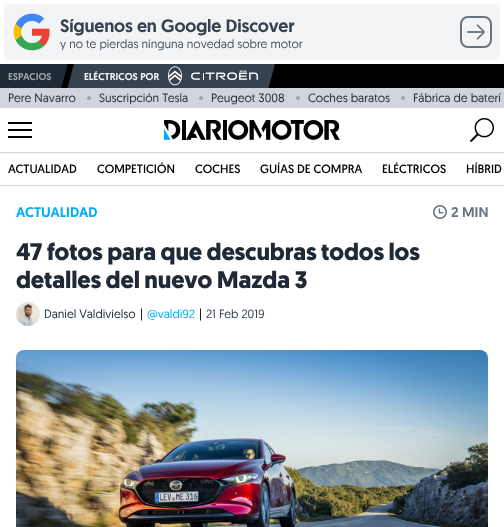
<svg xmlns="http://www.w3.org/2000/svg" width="504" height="527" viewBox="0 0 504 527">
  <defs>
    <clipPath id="clip1"><rect x="0" y="64" width="504" height="24"/></clipPath>
  </defs>
  <rect width="100%" height="100%" fill="rgb(255,255,255)"/>
  <rect x="0" y="152" width="504" height="1" fill="rgb(209,213,219)"/>
  <rect x="4" y="4" width="496" height="56" rx="8" fill="rgb(243,244,246)"/>
  <image x="13" y="13" width="37" height="38" href="pic1.png"/>
  <text x="60" y="32" font-family="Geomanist" font-size="18" font-weight="500" letter-spacing="-0.15" fill="rgb(55,66,80)">Síguenos en Google Discover</text>
  <text x="60" y="48" font-family="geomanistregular" font-size="12" fill="rgb(75,86,98)">y no te pierdas ninguna novedad sobre motor</text>
  <rect x="461" y="17" width="30" height="30" rx="7" fill="none" stroke="rgb(107,115,127)" stroke-width="2"/>
  <image x="467" y="24" width="18" height="16" href="pic2.png"/>
  <rect x="275" y="64" width="229" height="24" fill="rgb(0,0,0)"/>
  <rect x="0" y="64" width="68" height="24" fill="rgb(31,42,54)"/>
  <text x="8" y="80" font-family="Geomanist" font-size="10" font-weight="500" fill="rgb(156,164,175)">ESPACIOS</text>
  <rect x="68" y="64" width="207" height="24" fill="rgb(55,66,80)"/>
  <g clip-path="url(#clip1)">
    <path d="M69 60L74.5 61.5L66.5 92L60.5 90.5Z" fill="rgb(0,0,0)"/>
  </g>
  <text x="84" y="80" font-family="Geomanist" font-size="10" font-weight="500" fill="rgb(243,244,246)">ELÉCTRICOS POR</text>
  <image x="168" y="66" width="91" height="20" href="pic3.png"/>
  <g clip-path="url(#clip1)">
    <path d="M276 60L282 61.5L273.5 92L268 90.5Z" fill="rgb(0,0,0)"/>
  </g>
  <rect x="0" y="88" width="504" height="20" fill="rgb(209,213,219)"/>
  <text x="8" y="102" font-family="geomanistregular" font-size="12" fill="rgb(31,42,54)">Pere Navarro</text>
  <circle cx="89" cy="98" r="2" fill="rgb(156,164,175)"/>
  <text x="99" y="102" font-family="geomanistregular" font-size="12" fill="rgb(31,42,54)">Suscripción Tesla</text>
  <circle cx="201" cy="98" r="2" fill="rgb(156,164,175)"/>
  <text x="211" y="102" font-family="geomanistregular" font-size="12" fill="rgb(31,42,54)">Peugeot 3008</text>
  <circle cx="298" cy="98" r="2" fill="rgb(156,164,175)"/>
  <text x="308" y="102" font-family="geomanistregular" font-size="12" fill="rgb(31,42,54)">Coches baratos</text>
  <circle cx="403" cy="98" r="2" fill="rgb(156,164,175)"/>
  <text x="413" y="102" font-family="geomanistregular" font-size="12" fill="rgb(31,42,54)">Fábrica de baterí</text>
  <rect x="8" y="122" width="24" height="2" fill="rgb(0,0,0)"/>
  <rect x="8" y="129" width="24" height="2" fill="rgb(0,0,0)"/>
  <rect x="8" y="136" width="24" height="2" fill="rgb(0,0,0)"/>
  <image x="164" y="120" width="176" height="20" href="pic4.png"/>
  <image x="470" y="118" width="24" height="24" href="pic5.png"/>
  <rect x="0" y="185" width="504" height="1" fill="rgb(209,213,219)"/>
  <g font-family="Geomanist" font-size="12" fill="rgb(0,0,0)">
    <text x="8" y="173">ACTUALIDAD</text>
    <text x="97" y="173">COMPETICIÓN</text>
    <text x="195" y="173">COCHES</text>
    <text x="260" y="173">GUÍAS DE COMPRA</text>
    <text x="382" y="173">ELÉCTRICOS</text>
    <text x="466" y="173">HÍBRID</text>
  </g>
  <text x="16" y="217" font-family="Geomanist" font-size="14" font-weight="500" fill="rgb(1,173,249)">ACTUALIDAD</text>
  <image x="433" y="205" width="14" height="14" href="pic6.png"/>
  <text x="451" y="217" font-family="Geomanist" font-size="14" font-weight="500" fill="rgb(107,115,127)">2 MIN</text>
  <g font-family="Geomanist" font-size="24" font-weight="bold" letter-spacing="-0.15" fill="rgb(31,42,54)">
    <text>
      <tspan x="16" y="260">47 fotos para que descubras todos los</tspan>
      <tspan x="16" y="288">detalles del nuevo Mazda 3</tspan>
    </text>
  </g>
  <image x="16" y="302" width="24" height="24" href="pic7.png"/>
  <text x="44" y="318" font-family="geomanistregular" font-size="12" fill="rgb(31,42,54)">Daniel Valdivielso</text>
  <text x="140" y="318" font-family="geomanistregular" font-size="12" fill="rgb(0,0,0)">|</text>
  <text x="147" y="318" font-family="geomanistregular" font-size="12" fill="rgb(1,173,249)">@valdi92</text>
  <text x="199" y="318" font-family="geomanistregular" font-size="12" fill="rgb(0,0,0)">|</text>
  <text x="206" y="318" font-family="geomanistregular" font-size="12" fill="rgb(55,66,80)">21 Feb 2019</text>
  <image x="16" y="350" width="472" height="177" href="pic8.png"/>
</svg>
